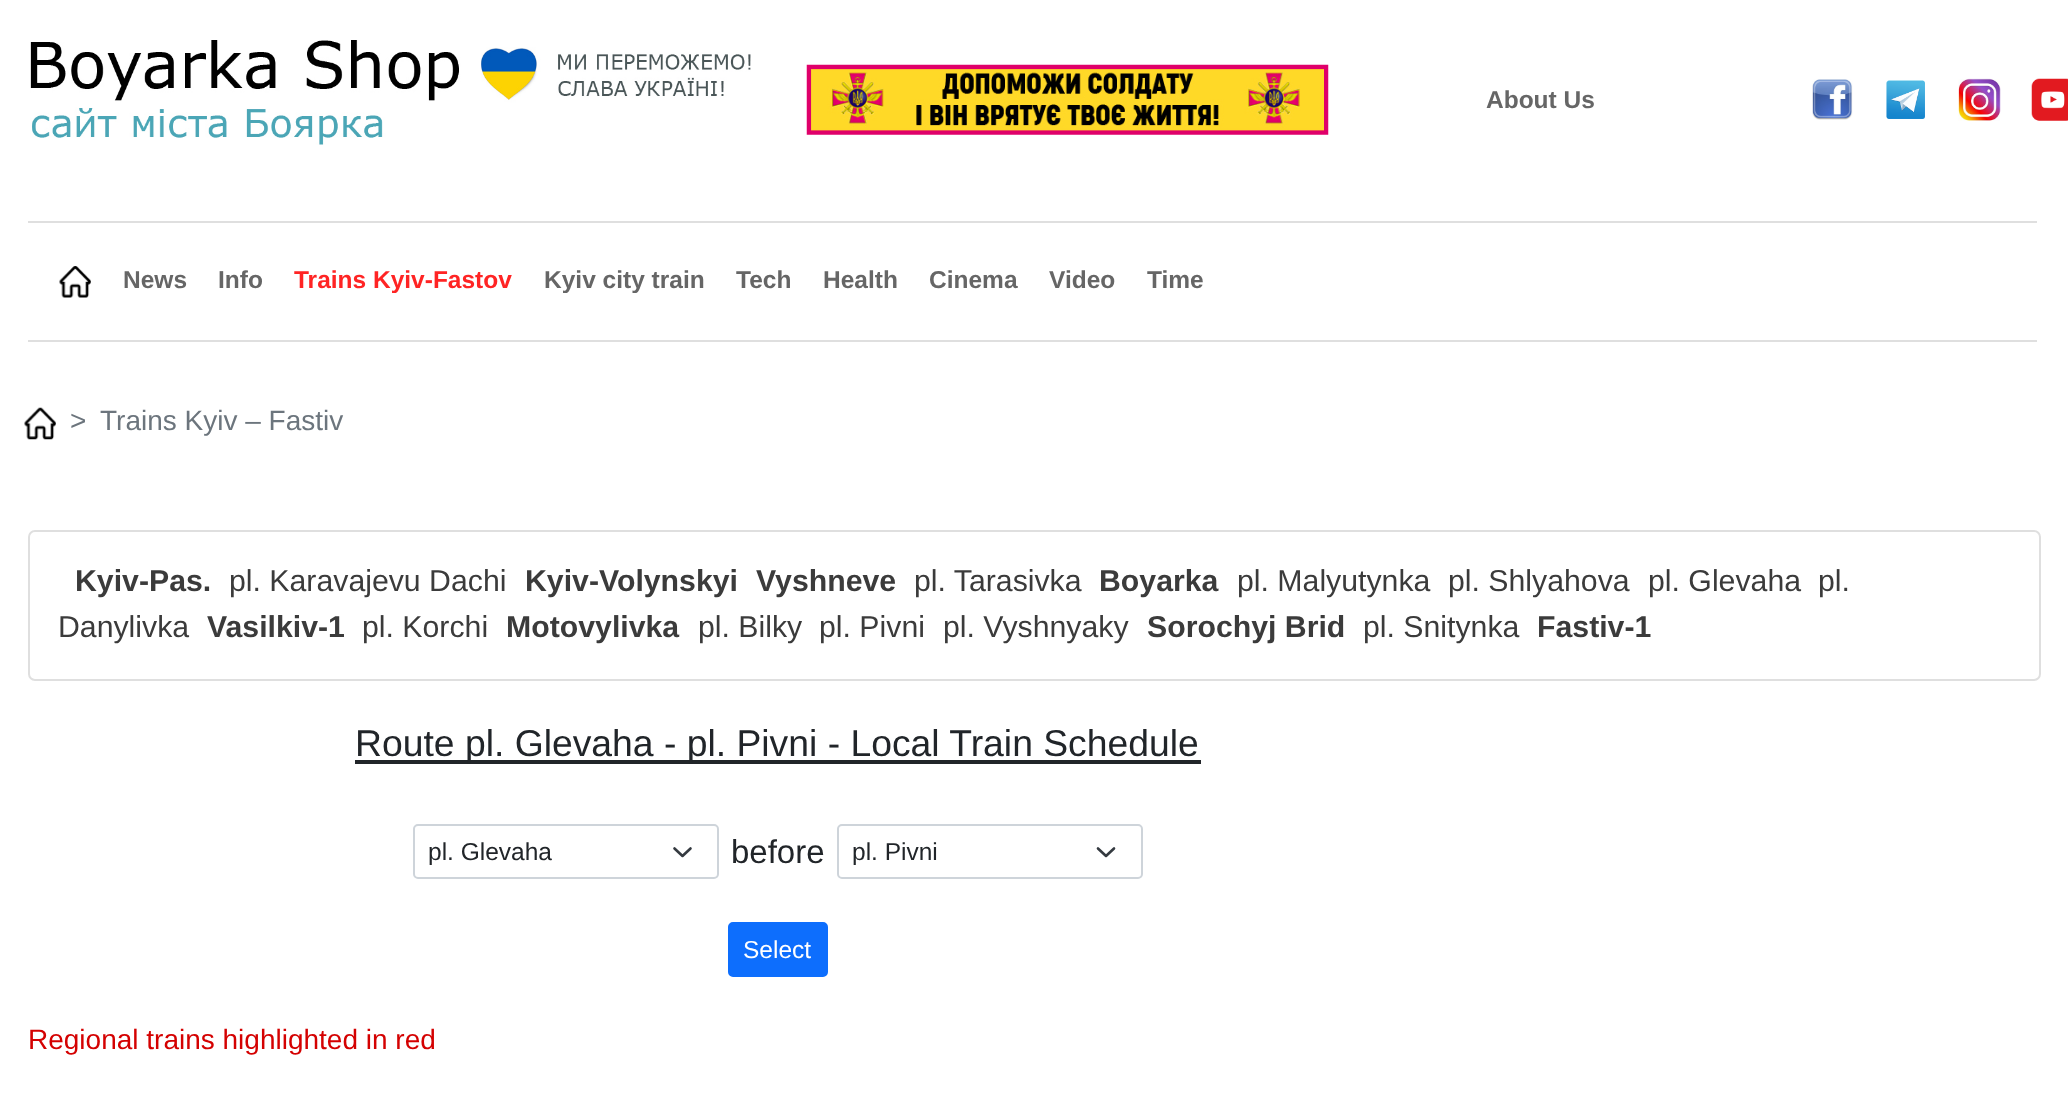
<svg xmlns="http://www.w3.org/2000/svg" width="2068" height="1108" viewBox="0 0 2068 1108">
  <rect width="100%" height="100%" fill="rgb(255,255,255)"/>
  <image x="30" y="40" width="721" height="105" href="pic1.png"/>
  <image x="806" y="64" width="523" height="71" href="pic2.png"/>
  <text x="1486" y="108" font-family="Liberation Sans" font-size="24.5" font-weight="bold" fill="rgb(102,102,102)">About Us</text>
  <image x="1812" y="79" width="41" height="41" href="pic3.png"/>
  <image x="1886" y="80" width="39" height="39" href="pic4.png"/>
  <image x="1958" y="78" width="43" height="43" href="pic5.png"/>
  <image x="2031" y="78" width="37" height="43" href="pic6.png"/>
  <rect x="28" y="221" width="2009" height="2" fill="rgb(223,223,223)"/>
  <rect x="28" y="340" width="2009" height="2" fill="rgb(223,223,223)"/>
  <image x="59" y="266" width="32" height="32" href="pic7.png"/>
  <g font-family="Liberation Sans" font-size="24.5" font-weight="bold" fill="rgb(102,102,102)">
    <text x="123" y="288">News</text>
    <text x="218" y="288">Info</text>
  </g>
  <text x="294" y="288" font-family="Liberation Sans" font-size="24.5" font-weight="bold" fill="rgb(255,36,36)">Trains Kyiv-Fastov</text>
  <g font-family="Liberation Sans" font-size="24.5" font-weight="bold" fill="rgb(102,102,102)">
    <text x="544" y="288">Kyiv city train</text>
    <text x="736" y="288">Tech</text>
    <text x="823" y="288">Health</text>
    <text x="929" y="288">Cinema</text>
    <text x="1049" y="288">Video</text>
    <text x="1147" y="288">Time</text>
  </g>
  <image x="24" y="407" width="32" height="33" href="pic8.png"/>
  <g font-family="Liberation Sans" font-size="28" fill="rgb(108,117,125)">
    <text x="70" y="430">&gt;</text>
    <text x="100" y="430">Trains Kyiv – Fastiv</text>
  </g>
  <rect x="29" y="531" width="2011" height="149" rx="6" fill="none" stroke="rgb(223,223,223)" stroke-width="2"/>
  <text x="75" y="591" font-family="Liberation Sans" font-size="30.25" font-weight="bold" fill="rgb(59,59,59)">Kyiv-Pas.</text>
  <text x="229" y="591" font-family="Liberation Sans" font-size="30.25" fill="rgb(59,59,59)">pl. Karavajevu Dachi</text>
  <g font-family="Liberation Sans" font-size="30.25" font-weight="bold" fill="rgb(59,59,59)">
    <text x="525" y="591">Kyiv-Volynskyi</text>
    <text x="756" y="591">Vyshneve</text>
  </g>
  <text x="914" y="591" font-family="Liberation Sans" font-size="30.25" fill="rgb(59,59,59)">pl. Tarasivka</text>
  <text x="1099" y="591" font-family="Liberation Sans" font-size="30.25" font-weight="bold" fill="rgb(59,59,59)">Boyarka</text>
  <g font-family="Liberation Sans" font-size="30.25" fill="rgb(59,59,59)">
    <text x="1237" y="591">pl. Malyutynka</text>
    <text x="1448" y="591">pl. Shlyahova</text>
    <text x="1648" y="591">pl. Glevaha</text>
    <text x="1818" y="591">pl.</text>
    <text x="58" y="637">Danylivka</text>
  </g>
  <text x="207" y="637" font-family="Liberation Sans" font-size="30.25" font-weight="bold" fill="rgb(59,59,59)">Vasilkiv-1</text>
  <text x="362" y="637" font-family="Liberation Sans" font-size="30.25" fill="rgb(59,59,59)">pl. Korchi</text>
  <text x="506" y="637" font-family="Liberation Sans" font-size="30.25" font-weight="bold" fill="rgb(59,59,59)">Motovylivka</text>
  <g font-family="Liberation Sans" font-size="30.25" fill="rgb(59,59,59)">
    <text x="698" y="637">pl. Bilky</text>
    <text x="819" y="637">pl. Pivni</text>
    <text x="943" y="637">pl. Vyshnyaky</text>
  </g>
  <text x="1147" y="637" font-family="Liberation Sans" font-size="30.25" font-weight="bold" fill="rgb(59,59,59)">Sorochyj Brid</text>
  <text x="1363" y="637" font-family="Liberation Sans" font-size="30.25" fill="rgb(59,59,59)">pl. Snitynka</text>
  <text x="1537" y="637" font-family="Liberation Sans" font-size="30.25" font-weight="bold" fill="rgb(59,59,59)">Fastiv-1</text>
  <rect x="355" y="760" width="846" height="4" fill="rgb(33,37,41)"/>
  <text x="355" y="756" font-family="Liberation Sans" font-size="37.3" fill="rgb(33,37,41)">Route pl. Glevaha - pl. Pivni - Local Train Schedule</text>
  <path d="M674.5 848.5L682.5 856L690.5 848.5" fill="none" stroke="rgb(52,58,64)" stroke-width="2.6" stroke-linecap="round" stroke-linejoin="round"/>
  <rect x="414" y="825" width="304" height="53" rx="4" fill="none" stroke="rgb(206,212,218)" stroke-width="2"/>
  <text x="428" y="860" font-family="Liberation Sans" font-size="24.5" fill="rgb(33,37,41)">pl. Glevaha</text>
  <text x="731" y="863" font-family="Liberation Sans" font-size="33" fill="rgb(33,37,41)">before</text>
  <path d="M1098 848.5L1106 856L1114 848.5" fill="none" stroke="rgb(52,58,64)" stroke-width="2.6" stroke-linecap="round" stroke-linejoin="round"/>
  <rect x="838" y="825" width="304" height="53" rx="4" fill="none" stroke="rgb(206,212,218)" stroke-width="2"/>
  <text x="852" y="860" font-family="Liberation Sans" font-size="24.5" fill="rgb(33,37,41)">pl. Pivni</text>
  <rect x="729" y="923" width="98" height="53" rx="4" fill="rgb(13,110,253)" stroke="rgb(13,110,253)" stroke-width="2"/>
  <text x="743" y="958" font-family="Liberation Sans" font-size="24.5" fill="rgb(255,255,255)">Select</text>
  <text x="28" y="1049" font-family="Liberation Sans" font-size="28" fill="rgb(212,1,1)">Regional trains highlighted in red</text>
</svg>
